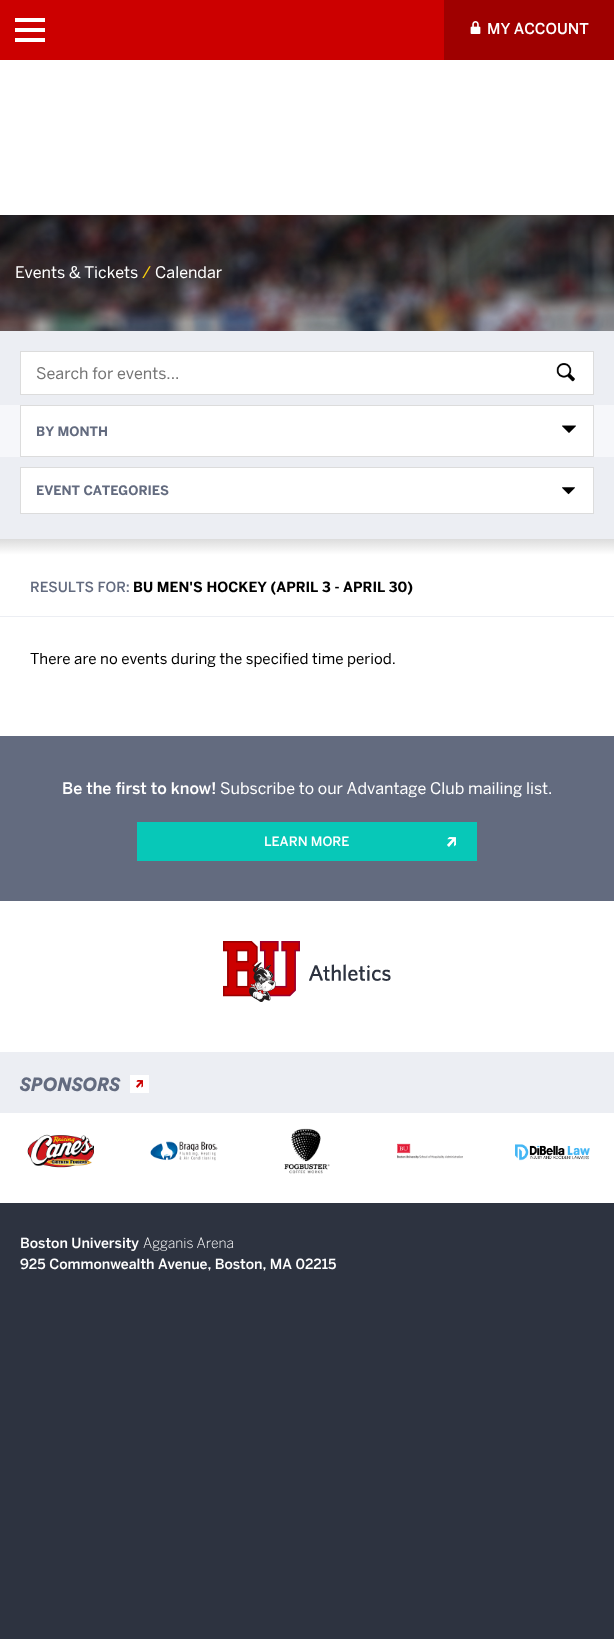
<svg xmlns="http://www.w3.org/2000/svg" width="614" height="1639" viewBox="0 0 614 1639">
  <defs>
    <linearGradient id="g1" gradientUnits="userSpaceOnUse" x1="307" y1="539" x2="307" y2="736"><stop offset="0" stop-color="rgb(220,220,220)"/><stop offset="0.08" stop-color="rgb(255,255,255)"/></linearGradient>
  </defs>
  <rect width="100%" height="100%" fill="rgb(45,51,64)"/>
  <rect x="0" y="0" width="444" height="60" fill="rgb(204,0,0)"/>
  <rect x="15" y="28" width="30" height="4" fill="rgb(255,255,255)"/>
  <rect x="15" y="18" width="30" height="4" fill="rgb(255,255,255)"/>
  <rect x="15" y="38" width="30" height="4" fill="rgb(255,255,255)"/>
  <rect x="444" y="0" width="170" height="60" fill="rgb(159,0,0)"/>
  <image x="470" y="21" width="11" height="13" href="pic1.png"/>
  <text x="487" y="34" font-family="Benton" font-size="15" font-weight="500" fill="rgb(255,255,255)">MY ACCOUNT</text>
  <rect x="0" y="60" width="614" height="155" fill="rgb(255,255,255)"/>
  <image x="0" y="215" width="614" height="116" href="pic2.png"/>
  <text x="15" y="278" font-family="Benton" font-size="16" fill="rgb(255,255,255)">Events &amp; Tickets</text>
  <text x="142" y="278" font-family="Benton" font-size="16" fill="rgb(249,209,15)">/</text>
  <text x="155" y="278" font-family="Benton" font-size="16" fill="rgb(255,255,255)">Calendar</text>
  <rect x="0" y="331" width="614" height="208" fill="rgb(236,238,243)"/>
  <rect x="20.5" y="351.5" width="573" height="43" fill="rgb(255,255,255)" stroke="rgb(220,220,220)"/>
  <text x="36" y="379" font-family="Benton" font-size="16" fill="rgb(117,117,117)">Search for events...</text>
  <image x="556" y="363" width="19" height="19" href="pic3.png"/>
  <rect x="0" y="405" width="614" height="52" fill="rgb(246,247,250)"/>
  <rect x="20.5" y="405.5" width="573" height="51" fill="rgb(255,255,255)" stroke="rgb(220,220,220)"/>
  <text x="36" y="436" font-family="Benton" font-size="13" font-weight="bold" fill="rgb(99,107,127)">BY MONTH</text>
  <image x="562" y="425" width="14" height="8" href="pic4.png"/>
  <rect x="20.5" y="467.5" width="573" height="46" fill="rgb(255,255,255)" stroke="rgb(220,220,220)"/>
  <text x="36" y="495" font-family="Benton" font-size="13" font-weight="bold" fill="rgb(99,107,127)">EVENT CATEGORIES</text>
  <image x="562" y="487" width="13" height="8" href="pic5.png"/>
  <rect x="0" y="539" width="614" height="197" fill="url(#g1)"/>
  <rect x="0" y="616" width="614" height="1" fill="rgb(236,238,243)"/>
  <text x="30" y="592" font-family="Benton" font-size="14" font-weight="500" fill="rgb(99,107,127)">RESULTS FOR:</text>
  <text x="133" y="592" font-family="Benton" font-size="14" font-weight="bold" fill="rgb(0,0,0)">BU MEN'S HOCKEY (APRIL 3 - APRIL 30)</text>
  <text x="30" y="664" font-family="Benton" font-size="15" fill="rgb(0,0,0)">There are no events during the specified time period.</text>
  <rect x="0" y="736" width="614" height="165" fill="rgb(99,107,127)"/>
  <text x="62" y="794" font-family="Benton" font-size="16" font-weight="500" fill="rgb(255,255,255)">Be the first to know!</text>
  <text x="220" y="794" font-family="Benton" font-size="16" fill="rgb(255,255,255)">Subscribe to our Advantage Club mailing list.</text>
  <rect x="137" y="822" width="340" height="39" fill="rgb(7,200,184)"/>
  <text x="264" y="846" font-family="Benton" font-size="13" font-weight="500" fill="rgb(255,255,255)">LEARN MORE</text>
  <image x="447" y="837" width="9" height="10" href="pic6.png"/>
  <rect x="0" y="901" width="614" height="151" fill="rgb(255,255,255)"/>
  <image x="223" y="941" width="168" height="61" href="pic7.png"/>
  <rect x="0" y="1113" width="614" height="90" fill="rgb(255,255,255)"/>
  <rect x="0" y="1052" width="614" height="61" fill="rgb(236,238,243)"/>
  <text x="20" y="1091" font-family="Circular" font-size="19" font-weight="900" font-style="italic" fill="rgb(99,107,127)">SPONSORS</text>
  <image x="130" y="1075" width="19" height="18" href="pic8.png"/>
  <image x="27" y="1134" width="67" height="34" href="pic9.png"/>
  <image x="150" y="1141" width="68" height="20" href="pic10.png"/>
  <image x="284" y="1128" width="46" height="46" href="pic11.png"/>
  <image x="397" y="1143" width="66" height="16" href="pic12.png"/>
  <image x="515" y="1144" width="75" height="17" href="pic13.png"/>
  <text x="20" y="1248" font-family="Benton" font-size="14" font-weight="500" fill="rgb(255,255,255)">Boston University</text>
  <text x="143" y="1248" font-family="Benton" font-size="14" font-weight="300" fill="rgb(255,255,255)">Agganis Arena</text>
  <text x="20" y="1269" font-family="Benton" font-size="14" font-weight="500" fill="rgb(255,255,255)">925 Commonwealth Avenue, Boston, MA 02215</text>
</svg>
